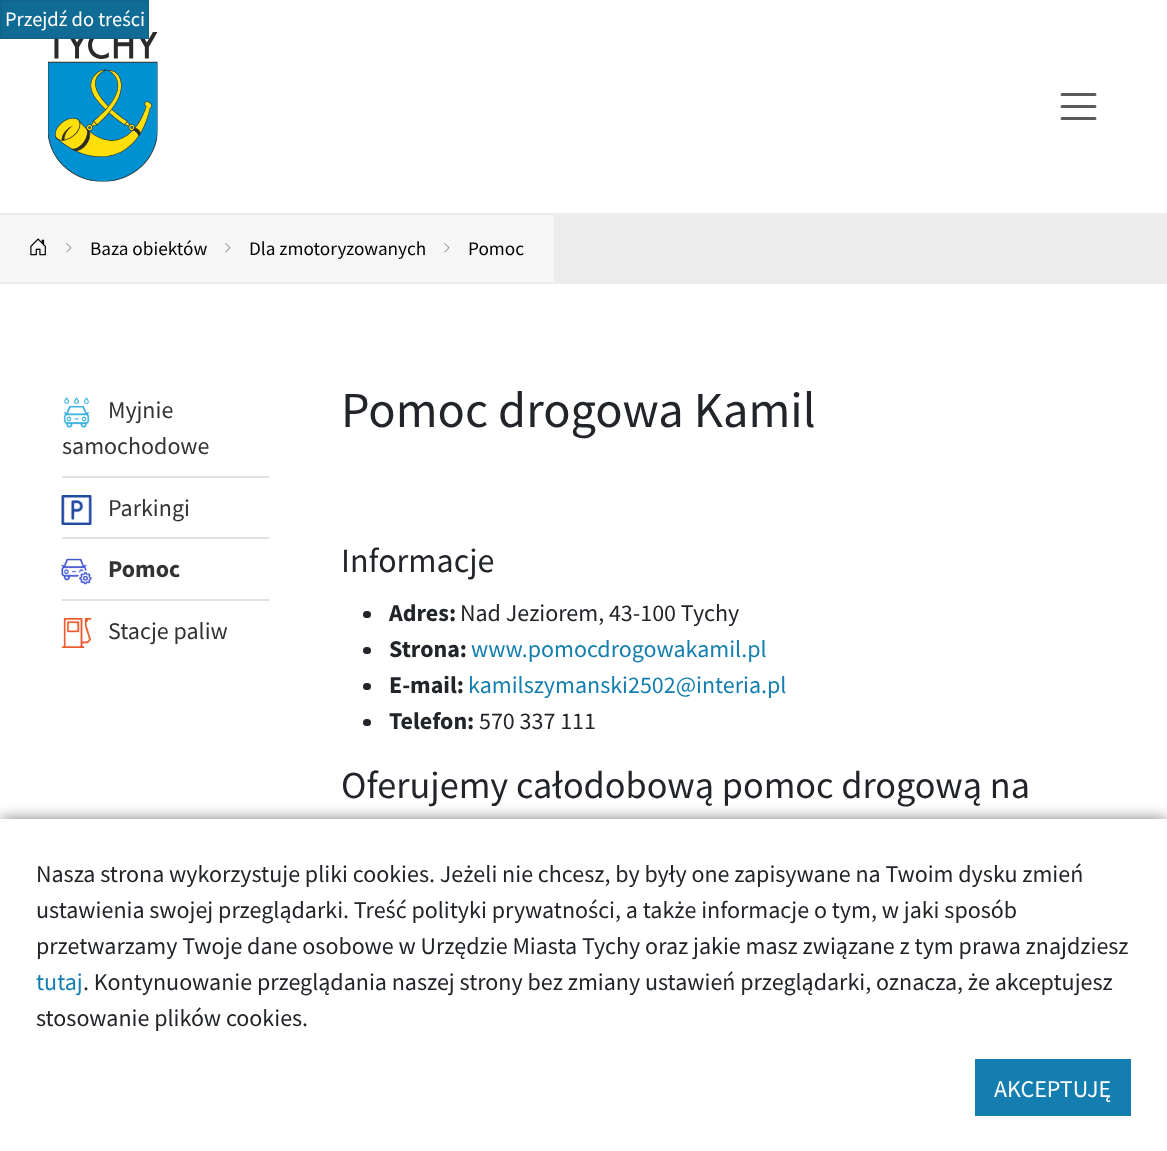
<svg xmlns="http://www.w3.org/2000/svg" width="1167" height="1151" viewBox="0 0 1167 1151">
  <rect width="100%" height="100%" fill="rgb(236,236,236)"/>
  <rect x="0" y="0" width="1167" height="213" fill="rgb(255,255,255)"/>
  <image x="48" y="32" width="110" height="150" href="pic1.png"/>
  <rect x="1" y="1" width="147" height="37" fill="rgb(16,107,149)" stroke="rgb(15,101,140)" stroke-width="2"/>
  <text x="5" y="26" font-family="Source Sans Pro" font-size="20.5" fill="rgb(255,255,255)">Przejdź do treści</text>
  <path d="M1062 94.5H1095M1062 106.5H1095M1062 118.5H1095" fill="none" stroke="rgb(89,92,95)" stroke-width="3" stroke-linecap="round"/>
  <rect x="0" y="215" width="554" height="67" fill="rgb(246,246,246)"/>
  <image x="30" y="238" width="16" height="18" href="pic2.png"/>
  <image x="66" y="243" width="6" height="10" href="pic3.png"/>
  <text x="90" y="255" font-family="Source Sans Pro" font-size="19.25" fill="rgb(0,0,0)">Baza obiektów</text>
  <image x="225" y="243" width="6" height="10" href="pic3.png"/>
  <text x="249" y="255" font-family="Source Sans Pro" font-size="19.25" fill="rgb(0,0,0)">Dla zmotoryzowanych</text>
  <image x="444" y="243" width="6" height="10" href="pic3.png"/>
  <text x="468" y="255" font-family="Source Sans Pro" font-size="19.25" fill="rgb(0,0,0)">Pomoc</text>
  <rect x="0" y="284" width="1167" height="535" fill="rgb(255,255,255)"/>
  <rect x="62" y="476" width="207" height="2" fill="rgb(222,226,230)"/>
  <image x="63" y="397" width="27" height="31" href="pic4.png"/>
  <g font-family="Source Sans Pro" font-size="24" fill="rgb(51,51,51)">
    <text x="108" y="418">Myjnie</text>
    <text x="62" y="454">samochodowe</text>
  </g>
  <rect x="62" y="537" width="207" height="2" fill="rgb(222,226,230)"/>
  <image x="61" y="495" width="31" height="30" href="pic5.png"/>
  <text x="108" y="516" font-family="Source Sans Pro" font-size="24" fill="rgb(51,51,51)">Parkingi</text>
  <rect x="62" y="599" width="207" height="2" fill="rgb(222,226,230)"/>
  <image x="61" y="558" width="31" height="27" href="pic6.png"/>
  <text x="108" y="577" font-family="Source Sans Pro" font-size="24" font-weight="bold" fill="rgb(51,51,51)">Pomoc</text>
  <image x="61" y="618" width="31" height="30" href="pic7.png"/>
  <text x="108" y="639" font-family="Source Sans Pro" font-size="24" fill="rgb(51,51,51)">Stacje paliw</text>
  <text x="341" y="427" font-family="Source Sans Pro" font-size="50.5" fill="rgb(33,37,41)">Pomoc drogowa Kamil</text>
  <text x="341" y="572" font-family="Source Sans Pro" font-size="34" fill="rgb(33,37,41)">Informacje</text>
  <rect x="363" y="611" width="8" height="7" rx="3.5" fill="rgb(33,37,41)"/>
  <text x="389" y="621" font-family="Source Sans Pro" font-size="24" font-weight="bold" fill="rgb(33,37,41)">Adres:</text>
  <text x="460" y="621" font-family="Source Sans Pro" font-size="24" fill="rgb(33,37,41)">Nad Jeziorem, 43-100 Tychy</text>
  <rect x="363" y="647" width="8" height="7" rx="3.5" fill="rgb(33,37,41)"/>
  <text x="389" y="657" font-family="Source Sans Pro" font-size="24" font-weight="bold" fill="rgb(33,37,41)">Strona:</text>
  <text x="471" y="657" font-family="Source Sans Pro" font-size="24" fill="rgb(19,126,175)">www.pomocdrogowakamil.pl</text>
  <rect x="363" y="683" width="8" height="7" rx="3.5" fill="rgb(33,37,41)"/>
  <text x="389" y="693" font-family="Source Sans Pro" font-size="24" font-weight="bold" fill="rgb(33,37,41)">E-mail:</text>
  <text x="468" y="693" font-family="Source Sans Pro" font-size="24" fill="rgb(19,126,175)">kamilszymanski2502@interia.pl</text>
  <rect x="363" y="719" width="8" height="7" rx="3.5" fill="rgb(33,37,41)"/>
  <text x="389" y="729" font-family="Source Sans Pro" font-size="24" font-weight="bold" fill="rgb(33,37,41)">Telefon:</text>
  <text x="479" y="729" font-family="Source Sans Pro" font-size="24" fill="rgb(33,37,41)">570 337 111</text>
  <text x="341" y="798" font-family="Source Sans Pro" font-size="38.25" fill="rgb(33,37,41)">Oferujemy całodobową pomoc drogową na</text>
  <rect x="0" y="819" width="1167" height="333" fill="rgba(0,0,0,0.5)" filter="blur(7.5px)"/>
  <rect x="0" y="819" width="1167" height="332" fill="rgb(255,255,255)"/>
  <g font-family="Source Sans Pro" font-size="24" fill="rgb(33,37,41)">
    <text>
      <tspan x="36" y="882">Nasza strona wykorzystuje pliki cookies. Jeżeli nie chcesz, by były one zapisywane na Twoim dysku zmień</tspan>
      <tspan x="36" y="918">ustawienia swojej przeglądarki. Treść polityki prywatności, a także informacje o tym, w jaki sposób</tspan>
      <tspan x="36" y="954">przetwarzamy Twoje dane osobowe w Urzędzie Miasta Tychy oraz jakie masz związane z tym prawa znajdziesz</tspan>
    </text>
  </g>
  <text x="36" y="990" font-family="Source Sans Pro" font-size="24" fill="rgb(19,126,175)">tutaj</text>
  <g font-family="Source Sans Pro" font-size="24" fill="rgb(33,37,41)">
    <text x="83" y="990">. Kontynuowanie przeglądania naszej strony bez zmiany ustawień przeglądarki, oznacza, że akceptujesz</text>
    <text x="36" y="1026">stosowanie plików cookies.</text>
  </g>
  <rect x="975" y="1059" width="156" height="57" fill="rgb(19,126,175)"/>
  <text x="994" y="1097" font-family="Source Sans Pro" font-size="24" fill="rgb(255,255,255)">AKCEPTUJĘ</text>
</svg>
